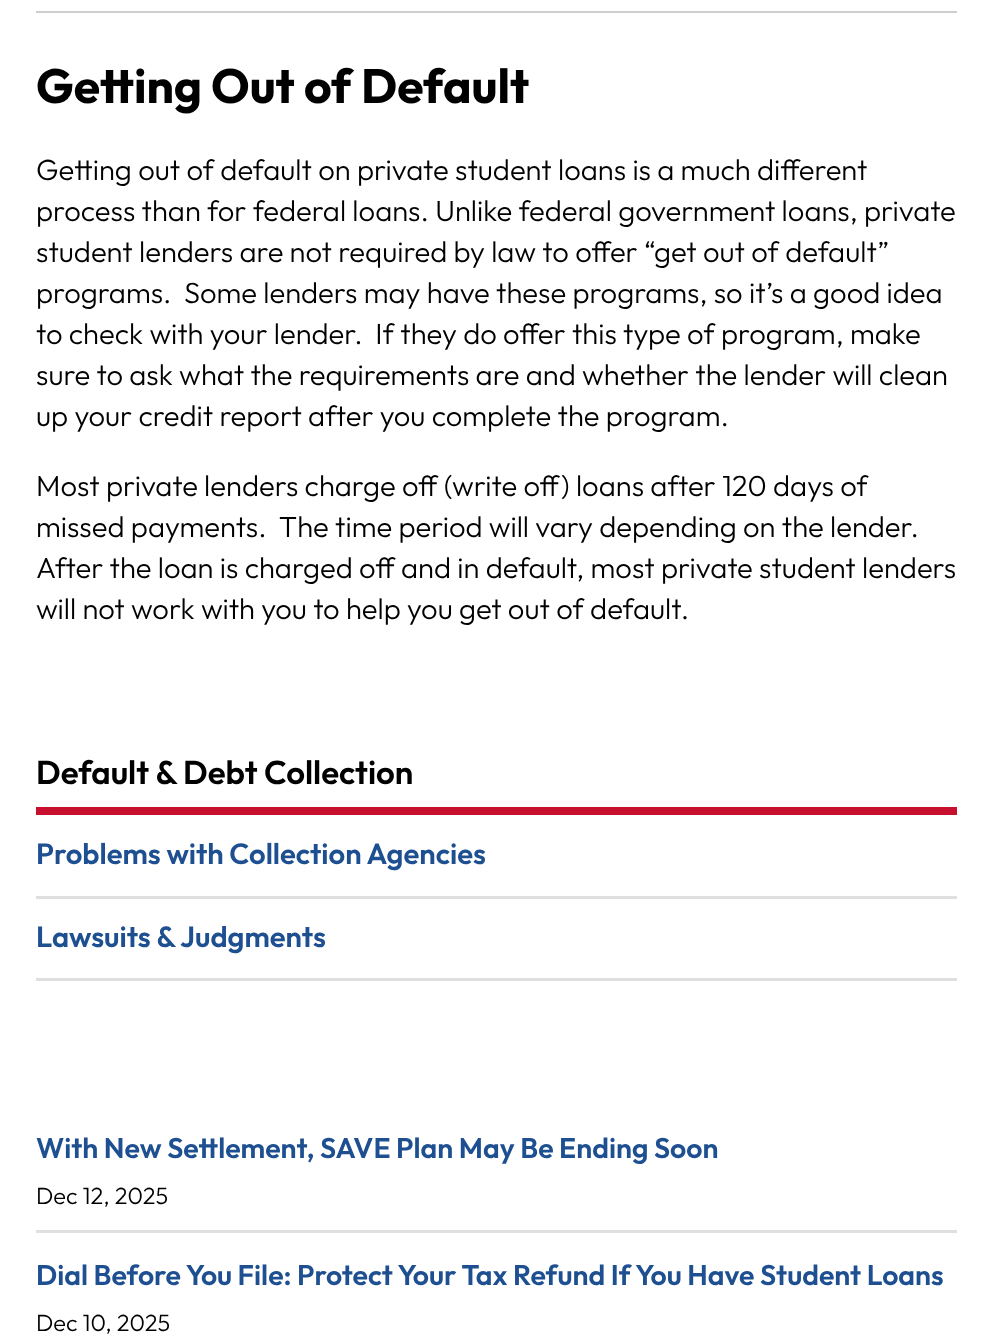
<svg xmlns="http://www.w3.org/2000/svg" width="993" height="1337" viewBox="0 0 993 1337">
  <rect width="100%" height="100%" fill="rgb(255,255,255)"/>
  <rect x="36" y="11" width="921" height="2" fill="rgb(205,206,208)"/>
  <text x="36" y="103" font-family="Outfit" font-size="48" font-weight="bold" fill="rgb(0,0,0)">Getting Out of Default</text>
  <g font-family="Outfit" font-size="29.2" font-weight="300" fill="rgb(0,0,0)">
    <text xml:space="preserve"><tspan x="36" y="180">Getting out of default on private student loans is a much different</tspan><tspan x="36" y="221">process than for federal loans. Unlike federal government loans, private</tspan><tspan x="36" y="262">student lenders are not required by law to offer “get out of default”</tspan><tspan x="36" y="303">programs.  Some lenders may have these programs, so it’s a good idea</tspan><tspan x="36" y="344">to check with your lender.  If they do offer this type of program, make</tspan><tspan x="36" y="385">sure to ask what the requirements are and whether the lender will clean</tspan><tspan x="36" y="426">up your credit report after you complete the program.</tspan></text>
    <text xml:space="preserve"><tspan x="36" y="496">Most private lenders charge off (write off) loans after 120 days of</tspan><tspan x="36" y="537">missed payments.  The time period will vary depending on the lender.</tspan><tspan x="36" y="578">After the loan is charged off and in default, most private student lenders</tspan><tspan x="36" y="619">will not work with you to help you get out of default.</tspan></text>
  </g>
  <rect x="36" y="807" width="921" height="8" fill="rgb(198,16,46)"/>
  <text x="36" y="784" font-family="Outfit" font-size="33" font-weight="600" fill="rgb(0,0,0)">Default &amp; Debt Collection</text>
  <rect x="36" y="896" width="921" height="3" fill="rgb(223,223,226)"/>
  <text x="36" y="864" font-family="Outfit" font-size="29.2" font-weight="600" fill="rgb(29,79,145)">Problems with Collection Agencies</text>
  <rect x="36" y="978" width="921" height="3" fill="rgb(223,223,226)"/>
  <text x="36" y="947" font-family="Outfit" font-size="29.2" font-weight="600" fill="rgb(29,79,145)">Lawsuits &amp; Judgments</text>
  <rect x="36" y="1230" width="921" height="3" fill="rgb(223,223,226)"/>
  <text x="36" y="1158" font-family="Outfit" font-size="28.45" font-weight="600" fill="rgb(29,79,145)">With New Settlement, SAVE Plan May Be Ending Soon</text>
  <text x="36" y="1204" font-family="Outfit" font-size="23.5" font-weight="300" fill="rgb(0,0,0)">Dec 12, 2025</text>
  <text x="36" y="1285" font-family="Outfit" font-size="28.45" font-weight="600" fill="rgb(29,79,145)">Dial Before You File: Protect Your Tax Refund If You Have Student Loans</text>
  <text x="36" y="1331" font-family="Outfit" font-size="23.5" font-weight="300" fill="rgb(0,0,0)">Dec 10, 2025</text>
</svg>
